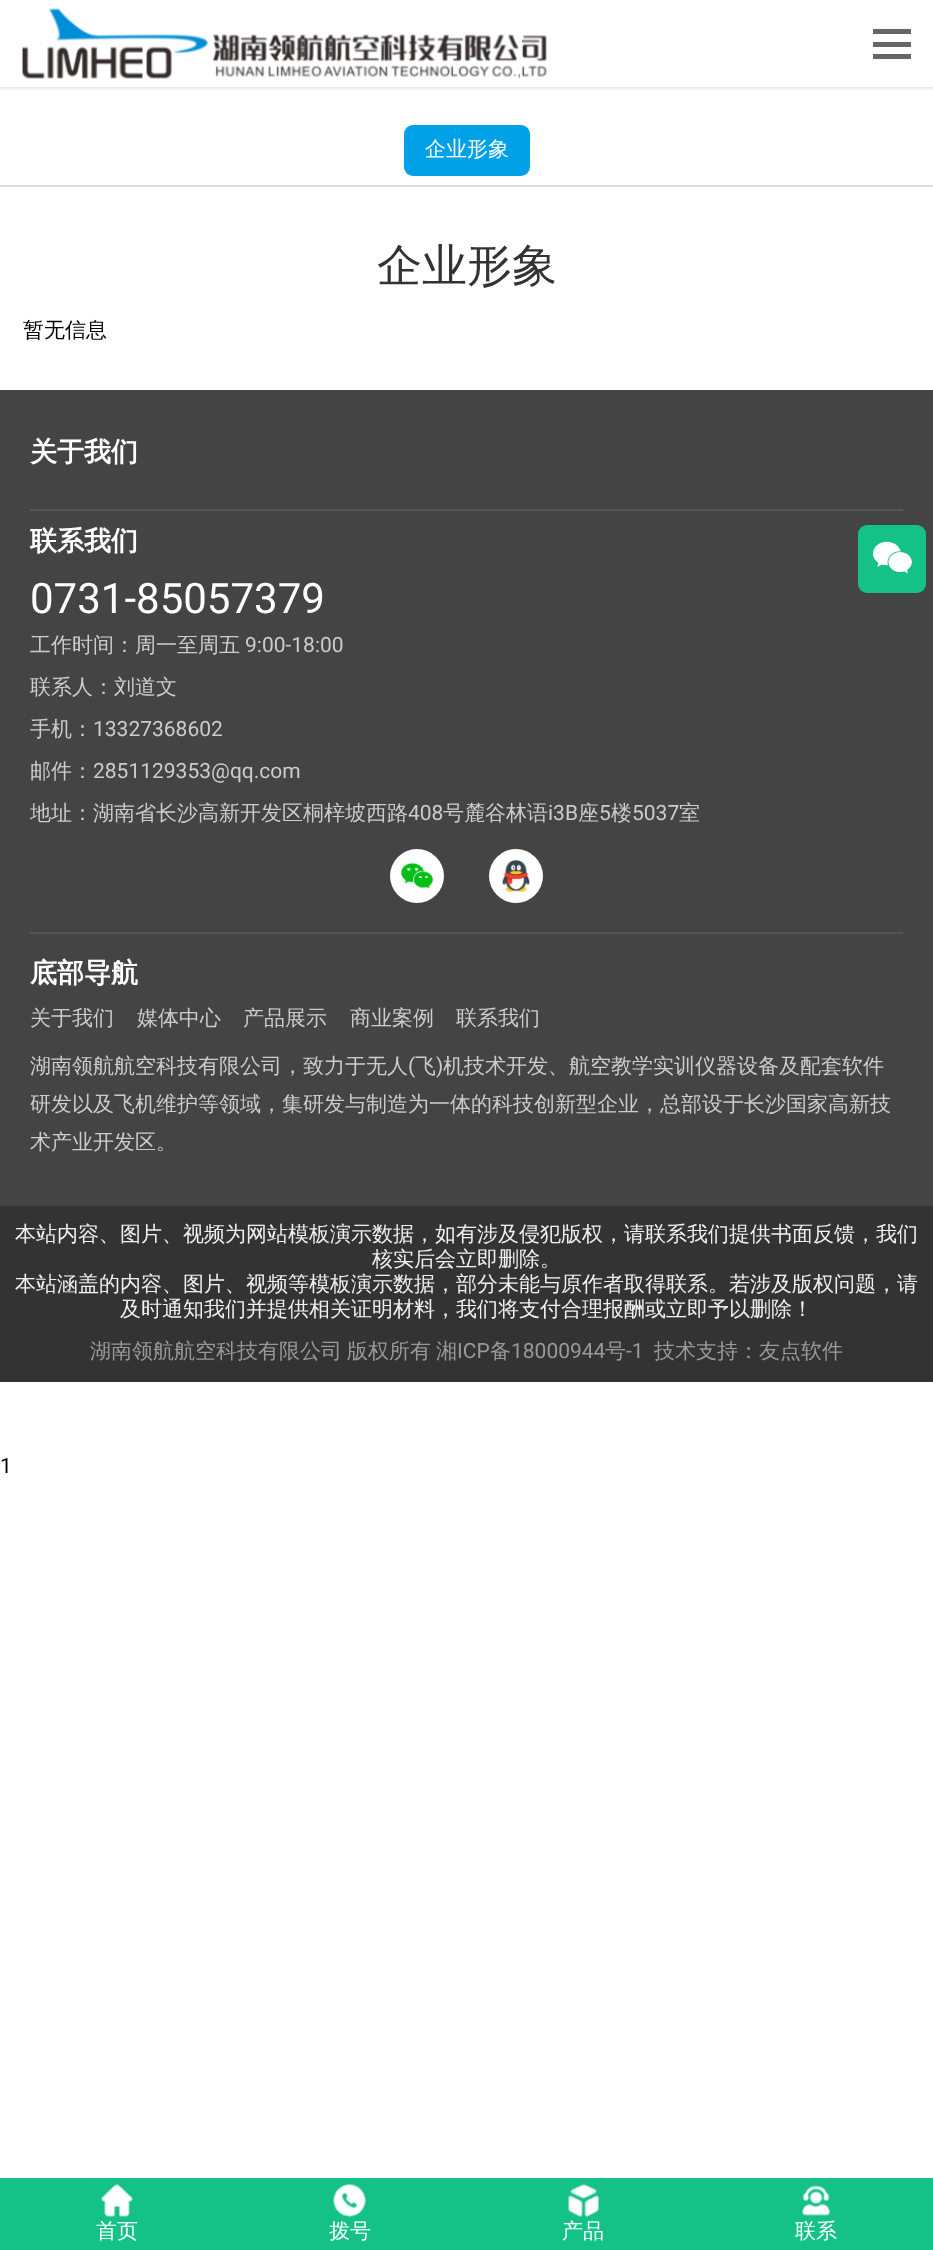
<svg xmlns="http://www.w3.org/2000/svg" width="933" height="2250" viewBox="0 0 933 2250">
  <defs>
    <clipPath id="clip1"><rect x="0" y="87" width="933" height="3"/></clipPath>
  </defs>
  <rect width="100%" height="100%" fill="rgb(255,255,255)"/>
  <g clip-path="url(#clip1)">
    <rect x="0" y="2" width="933" height="87" fill="rgba(0,0,0,0.1)" filter="blur(1px)"/>
  </g>
  <image x="22" y="8" width="525" height="71" href="pic1.png"/>
  <rect x="873" y="29" width="38" height="5" fill="rgb(102,102,102)"/>
  <rect x="873" y="54" width="38" height="5" fill="rgb(102,102,102)"/>
  <rect x="873" y="42" width="38" height="5" fill="rgb(102,102,102)"/>
  <rect x="0" y="185" width="933" height="2" fill="rgb(221,221,221)"/>
  <rect x="404" y="125" width="126" height="51" rx="9" fill="rgb(0,161,231)"/>
  <text x="425" y="156" font-family="WenQuanYi Zen Hei" font-size="21" font-weight="500" fill="rgb(255,255,255)">企业形象</text>
  <text x="377" y="281" font-family="WenQuanYi Zen Hei" font-size="45" font-weight="500" fill="rgb(51,51,51)">企业形象</text>
  <text x="23" y="337" font-family="WenQuanYi Zen Hei" font-size="21" font-weight="500" fill="rgb(0,0,0)">暂无信息</text>
  <rect x="0" y="390" width="933" height="816" fill="rgb(68,68,68)"/>
  <text x="30" y="461" font-family="WenQuanYi Zen Hei" font-size="27" font-weight="bold" fill="rgb(255,255,255)">关于我们</text>
  <rect x="30" y="509" width="873" height="2" fill="rgb(85,85,85)"/>
  <text x="30" y="550" font-family="WenQuanYi Zen Hei" font-size="27" font-weight="bold" fill="rgb(255,255,255)">联系我们</text>
  <text x="30" y="613" font-family="Roboto" font-size="42" fill="rgb(255,255,255)">0731-85057379</text>
  <text x="30" y="652" font-family="WenQuanYi Zen Hei" font-size="21" font-weight="500" fill="rgb(204,204,204)">工作时间：周一至周五</text>
  <text x="245" y="652" font-family="Roboto" font-size="21" fill="rgb(204,204,204)">9:00-18:00</text>
  <g font-family="WenQuanYi Zen Hei" font-size="21" font-weight="500" fill="rgb(204,204,204)">
    <text x="30" y="694">联系人：刘道文</text>
    <text x="30" y="736">手机：</text>
  </g>
  <text x="93" y="736" font-family="Roboto" font-size="21" fill="rgb(204,204,204)">13327368602</text>
  <text x="30" y="778" font-family="WenQuanYi Zen Hei" font-size="21" font-weight="500" fill="rgb(204,204,204)">邮件：</text>
  <text x="93" y="778" font-family="Roboto" font-size="21" fill="rgb(204,204,204)">2851129353@qq.com</text>
  <text x="30" y="820" font-family="WenQuanYi Zen Hei" font-size="21" font-weight="500" fill="rgb(204,204,204)">地址：湖南省长沙高新开发区桐梓坡西路</text>
  <text x="408" y="820" font-family="Roboto" font-size="21" fill="rgb(204,204,204)">408</text>
  <text x="443" y="820" font-family="WenQuanYi Zen Hei" font-size="21" font-weight="500" fill="rgb(204,204,204)">号麓谷林语</text>
  <text x="548" y="820" font-family="Roboto" font-size="21" fill="rgb(204,204,204)">i3B</text>
  <text x="578" y="820" font-family="WenQuanYi Zen Hei" font-size="21" font-weight="500" fill="rgb(204,204,204)">座</text>
  <text x="599" y="820" font-family="Roboto" font-size="21" fill="rgb(204,204,204)">5</text>
  <text x="611" y="820" font-family="WenQuanYi Zen Hei" font-size="21" font-weight="500" fill="rgb(204,204,204)">楼</text>
  <text x="632" y="820" font-family="Roboto" font-size="21" fill="rgb(204,204,204)">5037</text>
  <text x="679" y="820" font-family="WenQuanYi Zen Hei" font-size="21" font-weight="500" fill="rgb(204,204,204)">室</text>
  <circle cx="417" cy="876" r="27" fill="rgb(255,255,255)"/>
  <image x="400" y="862" width="34" height="27" href="pic2.png"/>
  <circle cx="516" cy="876" r="27" fill="rgb(255,255,255)"/>
  <image x="502" y="859" width="28" height="34" href="pic3.png"/>
  <rect x="30" y="932" width="873" height="2" fill="rgb(85,85,85)"/>
  <text x="30" y="982" font-family="WenQuanYi Zen Hei" font-size="27" font-weight="bold" fill="rgb(255,255,255)">底部导航</text>
  <g font-family="WenQuanYi Zen Hei" font-size="21" font-weight="500" fill="rgb(204,204,204)">
    <text x="30" y="1025">关于我们</text>
    <text x="137" y="1025">媒体中心</text>
    <text x="243" y="1025">产品展示</text>
    <text x="350" y="1025">商业案例</text>
    <text x="456" y="1025">联系我们</text>
    <text x="30" y="1073">湖南领航航空科技有限公司，致力于无人</text>
  </g>
  <text x="408" y="1073" font-family="Roboto" font-size="21" fill="rgb(204,204,204)">(</text>
  <text x="415" y="1073" font-family="WenQuanYi Zen Hei" font-size="21" font-weight="500" fill="rgb(204,204,204)">飞</text>
  <text x="436" y="1073" font-family="Roboto" font-size="21" fill="rgb(204,204,204)">)</text>
  <g font-family="WenQuanYi Zen Hei" font-size="21" font-weight="500" fill="rgb(204,204,204)">
    <text x="443" y="1073">机技术开发、航空教学实训仪器设备及配套软件</text>
    <text>
      <tspan x="30" y="1111">研发以及飞机维护等领域，集研发与制造为一体的科技创新型企业，总部设于长沙国家高新技</tspan>
      <tspan x="30" y="1149">术产业开发区。</tspan>
    </text>
  </g>
  <rect x="858" y="525" width="68" height="68" rx="9" fill="rgb(20,193,135)"/>
  <image x="873" y="541" width="39" height="33" href="pic4.png"/>
  <rect x="0" y="1206" width="933" height="176" fill="rgb(51,51,51)"/>
  <g font-family="WenQuanYi Zen Hei" font-size="21" font-weight="500" fill="rgb(240,240,240)">
    <text x="15" y="1241">本站内容、图片、视频为网站模板演示数据，如有涉及侵犯版权，请联系我们提供书面反馈，我们</text>
    <text x="372" y="1266">核实后会立即删除。</text>
    <text x="15" y="1291">本站涵盖的内容、图片、视频等模板演示数据，部分未能与原作者取得联系。若涉及版权问题，请</text>
    <text x="120" y="1316">及时通知我们并提供相关证明材料，我们将支付合理报酬或立即予以删除！</text>
  </g>
  <g font-family="WenQuanYi Zen Hei" font-size="21" font-weight="500" fill="rgb(153,153,153)">
    <text x="90" y="1358">湖南领航航空科技有限公司</text>
    <text x="347" y="1358">版权所有</text>
    <text x="436" y="1358">湘</text>
  </g>
  <text x="457" y="1358" font-family="Roboto" font-size="21" fill="rgb(153,153,153)">ICP</text>
  <text x="490" y="1358" font-family="WenQuanYi Zen Hei" font-size="21" font-weight="500" fill="rgb(153,153,153)">备</text>
  <text x="511" y="1358" font-family="Roboto" font-size="21" fill="rgb(153,153,153)">18000944</text>
  <text x="605" y="1358" font-family="WenQuanYi Zen Hei" font-size="21" font-weight="500" fill="rgb(153,153,153)">号</text>
  <text x="626" y="1358" font-family="Roboto" font-size="21" fill="rgb(153,153,153)">-1</text>
  <text x="654" y="1358" font-family="WenQuanYi Zen Hei" font-size="21" font-weight="500" fill="rgb(153,153,153)">技术支持：友点软件</text>
  <text x="0" y="1473" font-family="Roboto" font-size="21" fill="rgb(0,0,0)">1</text>
  <rect x="0" y="2178" width="933" height="72" fill="rgb(20,193,135)"/>
  <image x="101" y="2184" width="32" height="33" href="pic5.png"/>
  <text x="96" y="2238" font-family="WenQuanYi Zen Hei" font-size="21" font-weight="500" fill="rgb(255,255,255)">首页</text>
  <image x="333" y="2184" width="33" height="33" href="pic6.png"/>
  <text x="329" y="2238" font-family="WenQuanYi Zen Hei" font-size="21" font-weight="500" fill="rgb(255,255,255)">拨号</text>
  <image x="568" y="2184" width="31" height="33" href="pic7.png"/>
  <text x="562" y="2238" font-family="WenQuanYi Zen Hei" font-size="21" font-weight="500" fill="rgb(255,255,255)">产品</text>
  <image x="802" y="2185" width="28" height="31" href="pic8.png"/>
  <text x="795" y="2238" font-family="WenQuanYi Zen Hei" font-size="21" font-weight="500" fill="rgb(255,255,255)">联系</text>
</svg>
